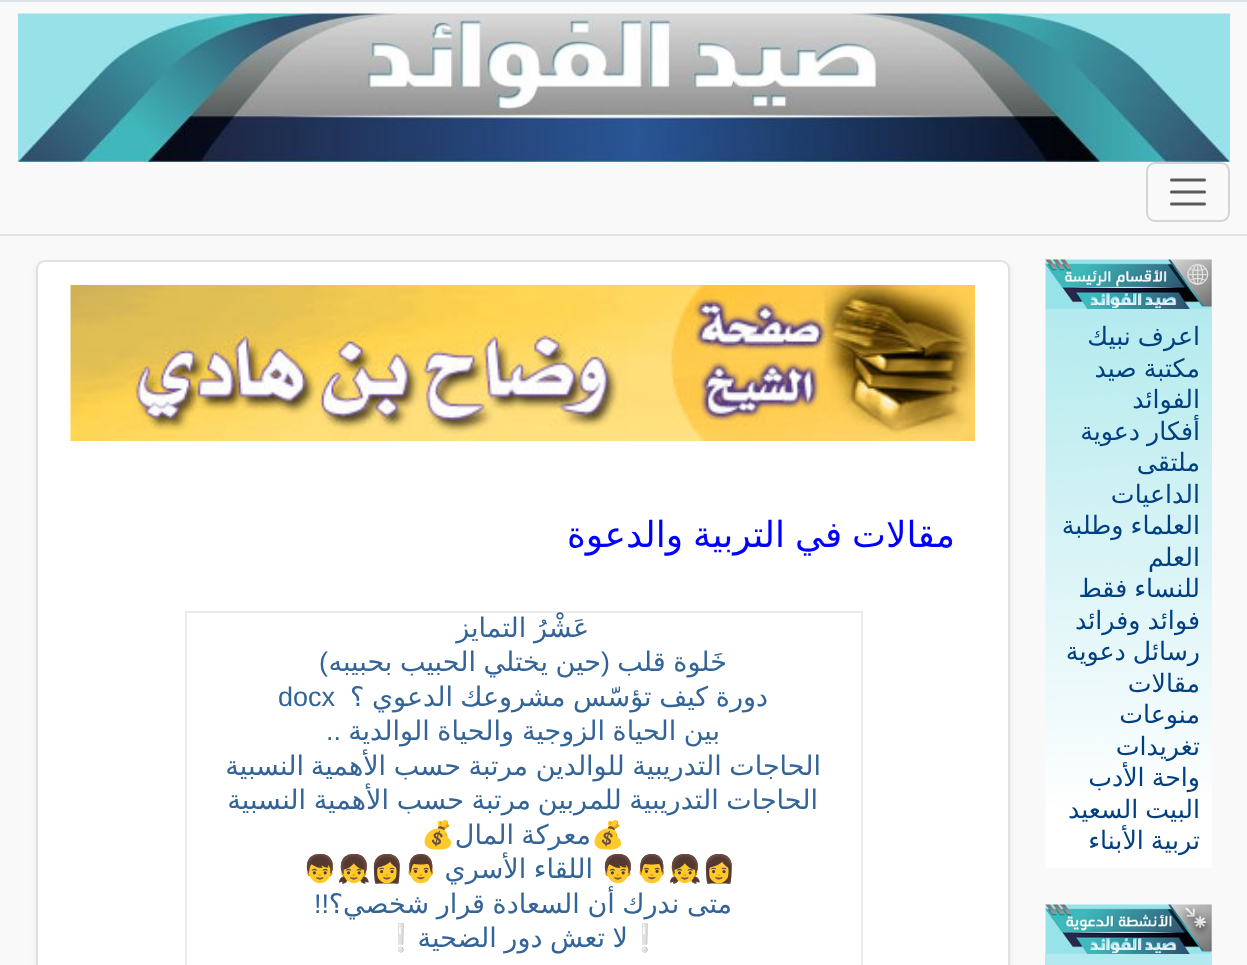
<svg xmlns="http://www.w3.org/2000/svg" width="1247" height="965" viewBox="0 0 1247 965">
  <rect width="100%" height="100%" fill="rgb(249,249,249)"/>
  <rect x="0" y="0" width="1247" height="2" fill="rgb(222,226,230)"/>
  <rect x="0" y="234" width="1247" height="2" fill="rgb(222,226,230)"/>
  <image x="18" y="13" width="1212" height="149" href="pic1.png"/>
  <rect x="1147" y="163" width="82" height="58" rx="8" fill="none" stroke="rgb(212,212,212)" stroke-width="2"/>
  <path d="M1171.5 180H1204.5M1171.5 192H1204.5M1171.5 204H1204.5" fill="none" stroke="rgb(87,90,93)" stroke-width="3" stroke-linecap="round"/>
  <image x="1045" y="259" width="167" height="50" href="pic2.png"/>
  <image x="1045" y="309" width="167" height="559" href="pic3.png"/>
  <g font-family="DejaVu Sans" font-size="25.25" direction="rtl" fill="rgb(0,64,128)">
    <text>
      <tspan x="1200" y="345" word-spacing="-1">اعرف نبيك</tspan>
      <tspan x="1200" y="377" word-spacing="-1">مكتبة صيد</tspan>
      <tspan x="1200" y="408">الفوائد</tspan>
      <tspan x="1200" y="440" word-spacing="-1">أفكار دعوية</tspan>
      <tspan x="1200" y="471">ملتقى</tspan>
      <tspan x="1200" y="503">الداعيات</tspan>
      <tspan x="1200" y="534" word-spacing="-1">العلماء وطلبة</tspan>
      <tspan x="1200" y="566">العلم</tspan>
      <tspan x="1200" y="597" word-spacing="-1">للنساء فقط</tspan>
      <tspan x="1200" y="629" word-spacing="-1">فوائد وفرائد</tspan>
      <tspan x="1200" y="660" word-spacing="-1">رسائل دعوية</tspan>
      <tspan x="1200" y="692">مقالات</tspan>
      <tspan x="1200" y="723">منوعات</tspan>
      <tspan x="1200" y="755">تغريدات</tspan>
      <tspan x="1200" y="786" word-spacing="-1">واحة الأدب</tspan>
      <tspan x="1200" y="818" word-spacing="-1">البيت السعيد</tspan>
      <tspan x="1200" y="849" word-spacing="-1">تربية الأبناء</tspan>
    </text>
  </g>
  <image x="1045" y="904" width="167" height="50" href="pic4.png"/>
  <rect x="1045" y="954" width="167" height="11" fill="rgb(180,234,239)"/>
  <rect x="36" y="263" width="974" height="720" rx="9" fill="rgba(0,0,0,0.07)" filter="blur(3px)"/>
  <rect x="37" y="261" width="972" height="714" rx="8" fill="rgb(255,255,255)" stroke="rgb(222,226,230)" stroke-width="2"/>
  <image x="70" y="285" width="905" height="156" href="pic5.png"/>
  <text x="955" y="547" word-spacing="-1.5" font-family="DejaVu Sans" font-size="36" direction="rtl" fill="rgb(0,0,255)">مقالات في التربية والدعوة</text>
  <rect x="185" y="611" width="678" height="2" fill="rgb(234,234,234)"/>
  <rect x="861" y="611" width="2" height="354" fill="rgb(234,234,234)"/>
  <rect x="185" y="611" width="2" height="354" fill="rgb(234,234,234)"/>
  <g font-family="DejaVu Sans" font-size="27" direction="rtl" fill="rgb(51,100,151)">
    <text x="589" y="637" word-spacing="-1">عَشْرُ التمايز</text>
    <text x="727" y="671" word-spacing="-1">خَلوة قلب</text>
  </g>
  <text x="610" y="671" font-family="Liberation Sans" font-size="27" direction="rtl" fill="rgb(51,100,151)">(</text>
  <text x="601" y="671" word-spacing="-1" font-family="DejaVu Sans" font-size="27" direction="rtl" fill="rgb(51,100,151)">حين يختلي الحبيب بحبيبه</text>
  <text x="328" y="671" font-family="Liberation Sans" font-size="27" direction="rtl" fill="rgb(51,100,151)">)</text>
  <g font-family="DejaVu Sans" font-size="27" direction="rtl" fill="rgb(51,100,151)">
    <text x="768" y="706" word-spacing="-1">دورة كيف تؤسّس مشروعك</text>
    <text x="453" y="706" word-spacing="-1">الدعوي ؟</text>
  </g>
  <text x="278" y="706" font-family="Liberation Sans" font-size="27" fill="rgb(51,100,151)">docx</text>
  <g font-family="DejaVu Sans" font-size="27" direction="rtl" fill="rgb(51,100,151)">
    <text x="720" y="740" word-spacing="-1">بين الحياة الزوجية</text>
    <text x="514" y="740" word-spacing="-1">والحياة الوالدية</text>
  </g>
  <text x="341" y="740" font-family="Liberation Sans" font-size="27" direction="rtl" fill="rgb(51,100,151)">..</text>
  <g font-family="DejaVu Sans" font-size="27" direction="rtl" fill="rgb(51,100,151)">
    <text x="821" y="775" word-spacing="-1">الحاجات التدريبية للوالدين</text>
    <text x="528" y="775" word-spacing="-1">مرتبة حسب الأهمية</text>
    <text x="304" y="775">النسبية</text>
    <text x="818" y="809" word-spacing="-1">الحاجات التدريبية للمربين</text>
    <text x="531" y="809" word-spacing="-1">مرتبة حسب</text>
    <text x="389" y="809" word-spacing="-1">الأهمية النسبية</text>
  </g>
  <text x="591" y="844" font-family="Noto Color Emoji" font-size="27" fill="rgb(51,100,151)">💰</text>
  <g font-family="DejaVu Sans" font-size="27" direction="rtl" fill="rgb(51,100,151)">
    <text x="591" y="844">معركة</text>
    <text x="514" y="844">المال</text>
  </g>
  <g font-family="Noto Color Emoji" font-size="27" fill="rgb(51,100,151)">
    <text x="421" y="844">💰</text>
    <text x="702" y="878">👩</text>
    <text x="668" y="878">👧</text>
    <text x="635" y="878">👨</text>
    <text x="601" y="878">👦</text>
  </g>
  <text x="593" y="878" word-spacing="-1" font-family="DejaVu Sans" font-size="27" direction="rtl" fill="rgb(51,100,151)">اللقاء الأسري</text>
  <g font-family="Noto Color Emoji" font-size="27" fill="rgb(51,100,151)">
    <text x="404" y="878">👨</text>
    <text x="370" y="878">👩</text>
    <text x="337" y="878">👧</text>
    <text x="303" y="878">👦</text>
  </g>
  <text x="732" y="913" word-spacing="-1" font-family="DejaVu Sans" font-size="27" direction="rtl" fill="rgb(51,100,151)">متى ندرك أن السعادة قرار شخصي؟</text>
  <text x="314" y="913" font-family="Liberation Sans" font-size="27" fill="rgb(51,100,151)">!!</text>
  <text x="628" y="947" font-family="Noto Color Emoji" font-size="27" fill="rgb(51,100,151)">❕</text>
  <g font-family="DejaVu Sans" font-size="27" direction="rtl" fill="rgb(51,100,151)">
    <text x="628" y="947">لا</text>
    <text x="605" y="947" word-spacing="-1">تعش دور الضحية</text>
  </g>
  <text x="384" y="947" font-family="Noto Color Emoji" font-size="27" fill="rgb(51,100,151)">❕</text>
</svg>
